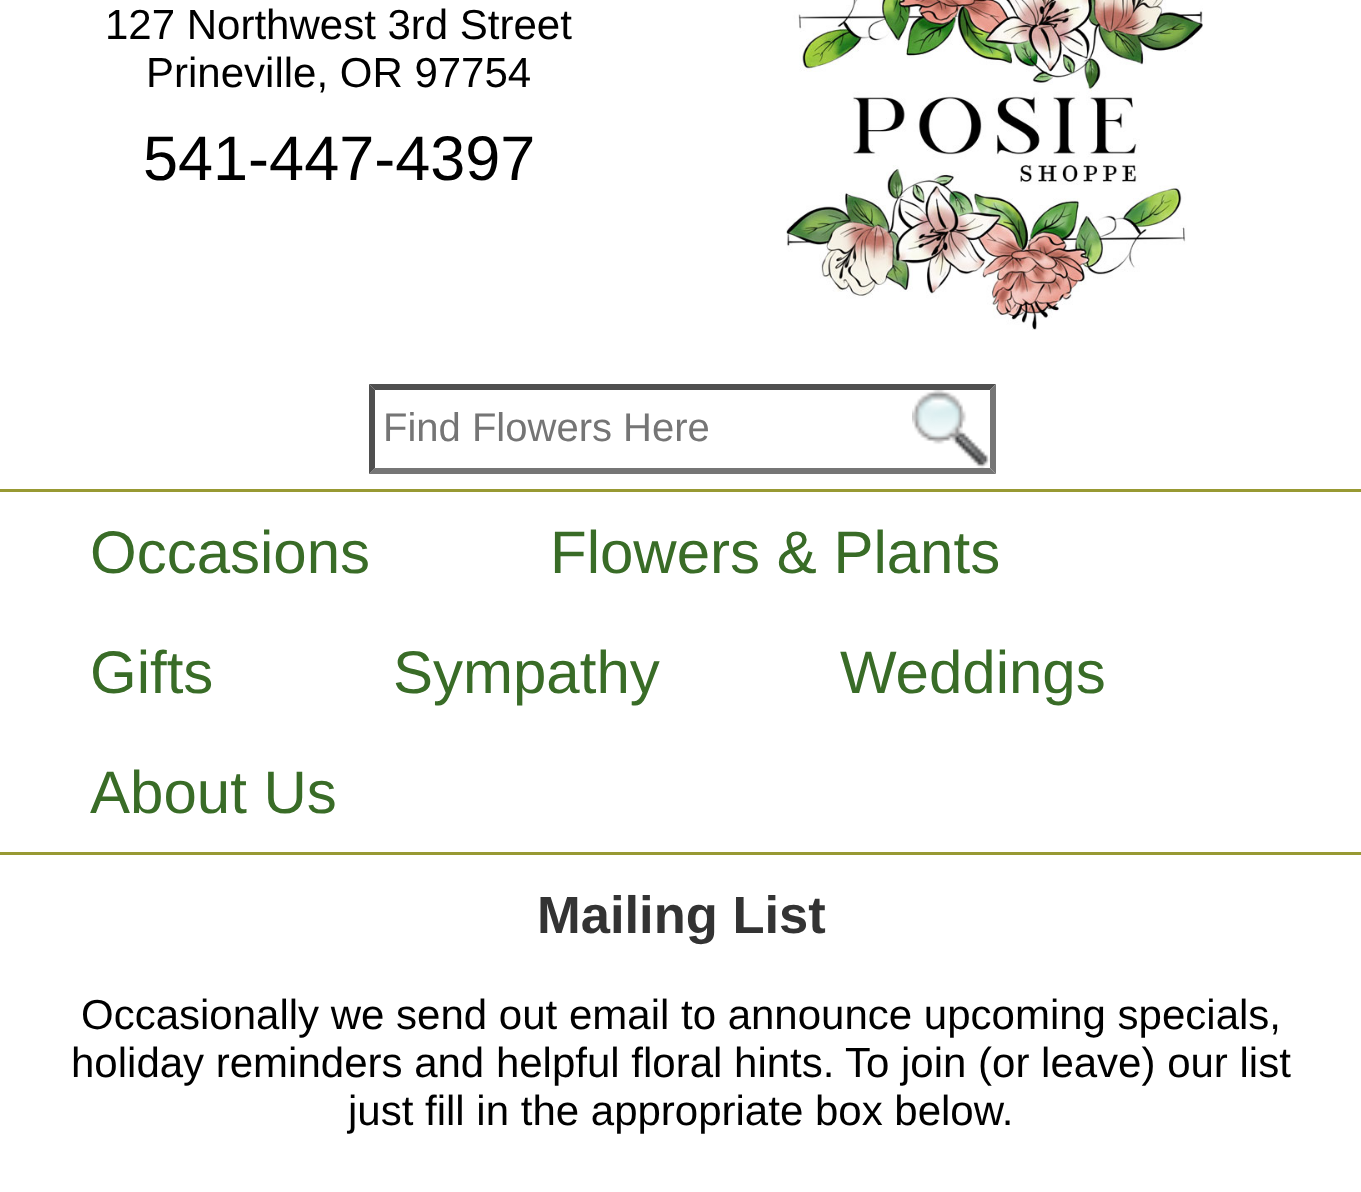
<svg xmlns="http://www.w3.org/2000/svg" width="1361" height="1192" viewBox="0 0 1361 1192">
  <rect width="100%" height="100%" fill="rgb(255,255,255)"/>
  <g font-family="Liberation Sans" font-size="42" fill="rgb(0,0,0)">
    <text x="105" y="39">127 Northwest 3rd Street</text>
    <text x="146" y="87">Prineville, OR 97754</text>
  </g>
  <text x="143" y="180" font-family="Liberation Sans" font-size="63" fill="rgb(0,0,0)">541-447-4397</text>
  <image x="786" y="0" width="417" height="330" href="pic1.png"/>
  <image x="912" y="390" width="78" height="78" href="pic2.png"/>
  <path d="M369 384H996L990 390H375Z" fill="rgb(79,79,79)"/>
  <path d="M996 384V474L990 468V390Z" fill="rgb(118,118,118)"/>
  <path d="M996 474H369L375 468H990Z" fill="rgb(118,118,118)"/>
  <path d="M369 474V384L375 390V468Z" fill="rgb(79,79,79)"/>
  <text x="383" y="441" font-family="Liberation Sans" font-size="40" fill="rgb(117,117,117)">Find Flowers Here</text>
  <rect x="0" y="489" width="1361" height="3" fill="rgb(152,153,51)"/>
  <rect x="0" y="852" width="1361" height="3" fill="rgb(152,153,51)"/>
  <g font-family="Liberation Sans" font-size="60" fill="rgb(57,108,39)">
    <text x="90" y="573">Occasions</text>
    <text x="550" y="573">Flowers &amp; Plants</text>
    <text x="90" y="693">Gifts</text>
    <text x="393" y="693">Sympathy</text>
    <text x="840" y="693">Weddings</text>
    <text x="90" y="813">About Us</text>
  </g>
  <text x="537" y="933" font-family="Liberation Sans" font-size="52.5" font-weight="bold" fill="rgb(51,51,51)">Mailing List</text>
  <g font-family="Liberation Sans" font-size="42" fill="rgb(0,0,0)">
    <text x="81" y="1029">Occasionally we send out email to announce upcoming specials,</text>
    <text x="71" y="1077">holiday reminders and helpful floral hints.</text>
    <text x="845" y="1077">To join (or leave) our list</text>
    <text x="348" y="1125">just fill in the appropriate box below.</text>
  </g>
</svg>
